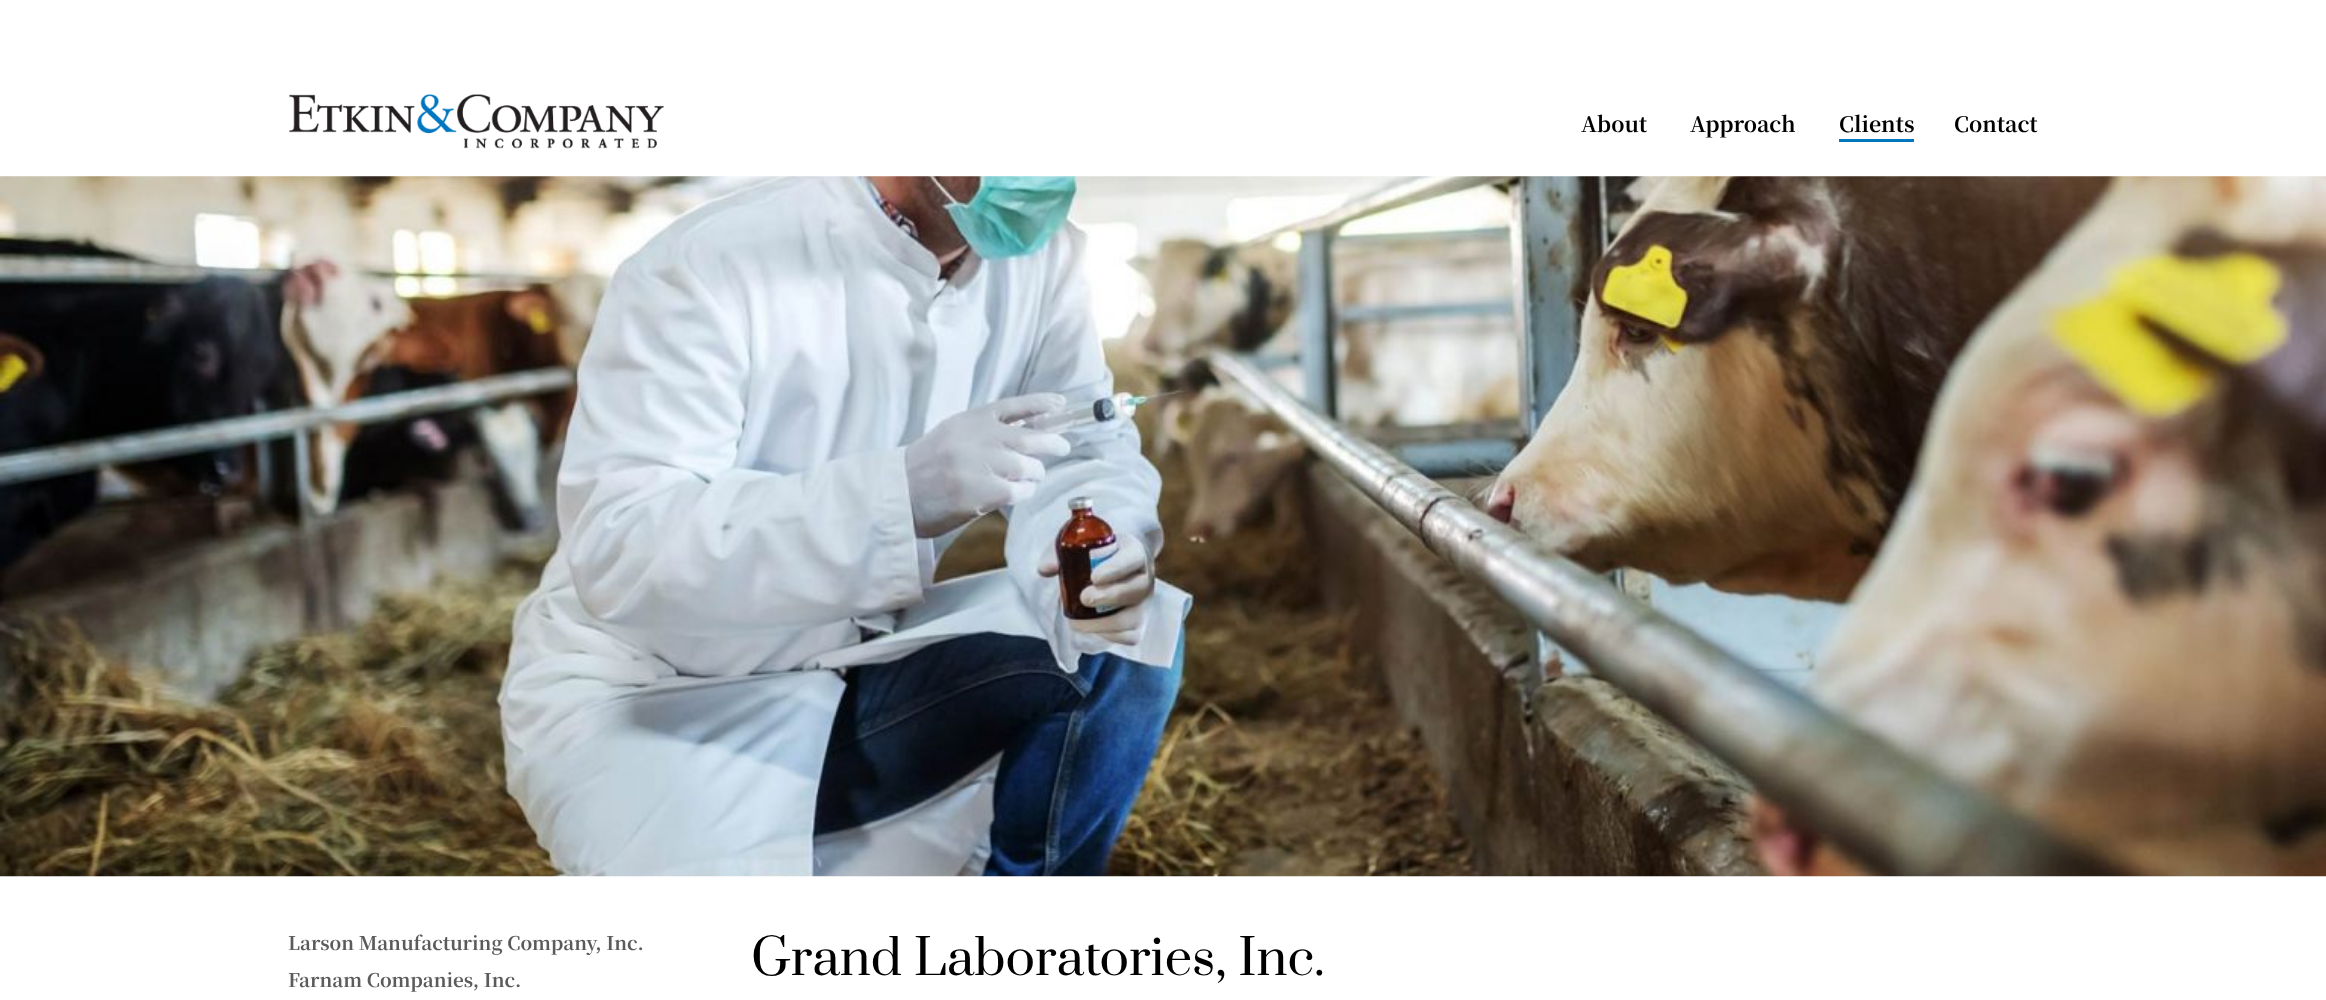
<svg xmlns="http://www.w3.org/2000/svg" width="2326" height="1000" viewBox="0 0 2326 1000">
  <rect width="100%" height="100%" fill="rgb(255,255,255)"/>
  <image x="289" y="94" width="375" height="55" href="pic1.png"/>
  <g font-family="Noto Serif JP" font-size="21.25" font-weight="bold" fill="rgb(0,0,0)">
    <text x="1581" y="132">About</text>
    <text x="1690" y="132">Approach</text>
    <text x="1839" y="132">Clients</text>
  </g>
  <rect x="1839" y="139" width="75" height="3" fill="rgb(0,118,192)"/>
  <text x="1954" y="132" font-family="Noto Serif JP" font-size="21.25" font-weight="bold" fill="rgb(0,0,0)">Contact</text>
  <image x="0" y="176" width="2326" height="701" href="pic2.png"/>
  <g font-family="Noto Serif JP" font-size="18.75" font-weight="bold" fill="rgb(91,91,91)">
    <text>
      <tspan x="288" y="950">Larson Manufacturing Company, Inc.</tspan>
      <tspan x="288" y="987">Farnam Companies, Inc.</tspan>
    </text>
  </g>
  <text x="751" y="975" font-family="Prata" font-size="48.75" fill="rgb(0,0,0)">Grand Laboratories, Inc.</text>
</svg>
